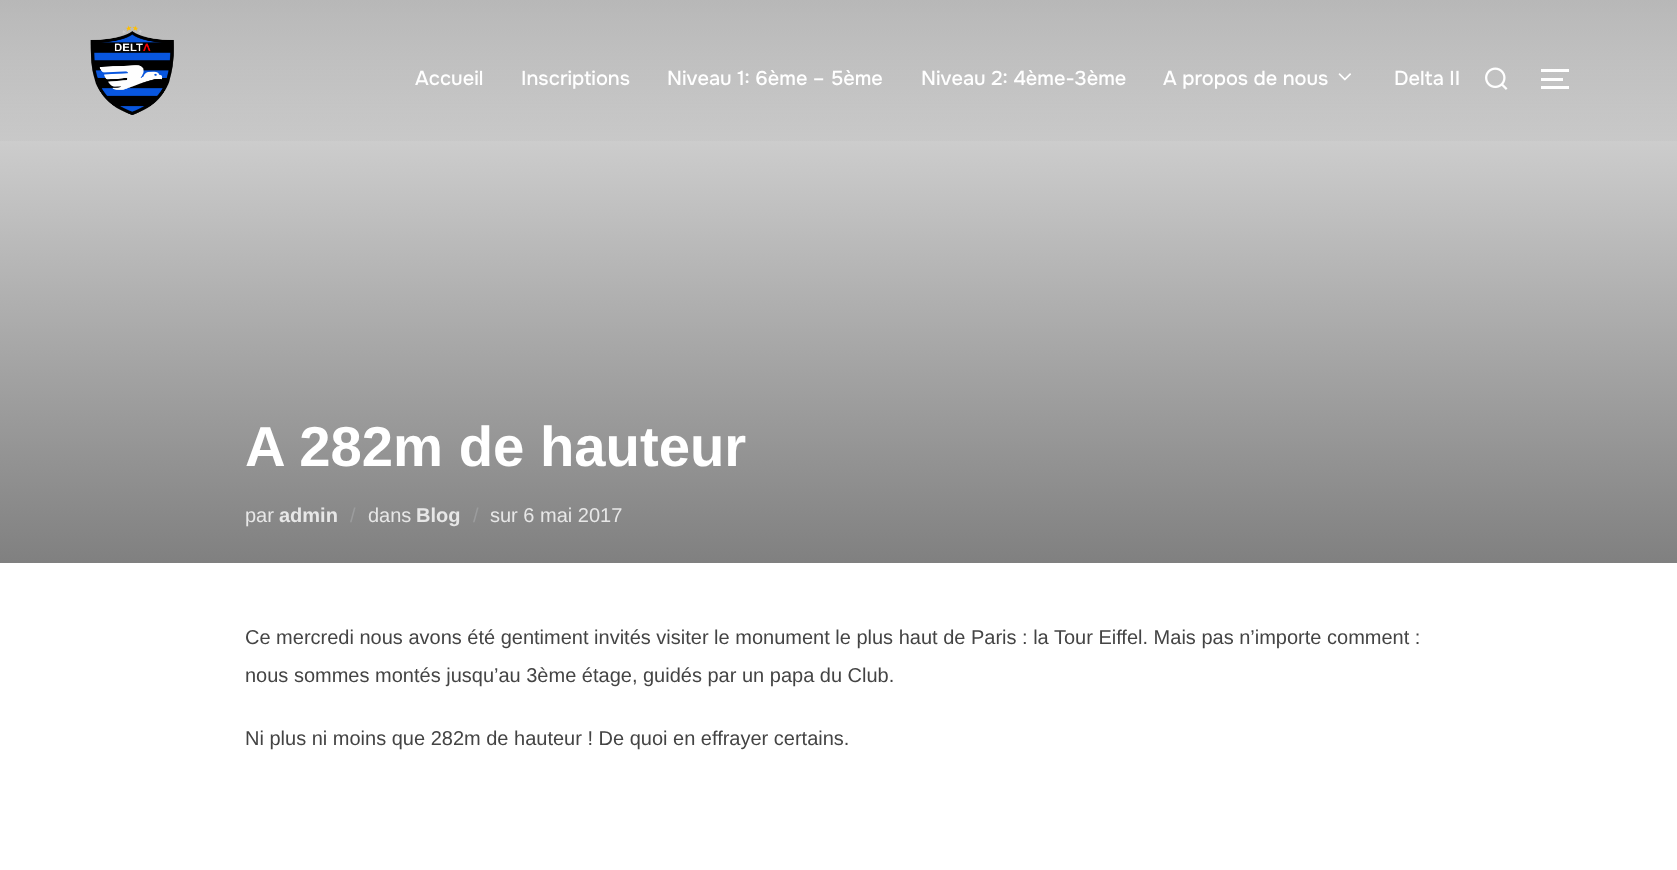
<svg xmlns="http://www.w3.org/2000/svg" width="1677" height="870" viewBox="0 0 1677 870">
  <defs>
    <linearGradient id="g1" gradientUnits="userSpaceOnUse" x1="839" y1="0" x2="839" y2="563"><stop offset="0" stop-color="rgb(230,230,230)"/><stop offset="1" stop-color="rgb(128,128,128)"/></linearGradient>
    <linearGradient id="g2" gradientUnits="userSpaceOnUse" x1="839" y1="0" x2="839" y2="158"><stop offset="0.01" stop-color="rgb(0,0,0)" stop-opacity="0.2"/><stop offset="1" stop-color="rgb(0,0,0)" stop-opacity="0"/></linearGradient>
  </defs>
  <rect width="100%" height="100%" fill="rgb(255,255,255)"/>
  <rect x="0" y="0" width="1677" height="563" fill="url(#g1)"/>
  <rect x="0" y="0" width="1677" height="141" fill="url(#g2)"/>
  <image x="90" y="25" width="84" height="90" href="pic1.png"/>
  <g font-family="Onest" font-size="20" font-weight="500" fill="rgb(255,255,255)">
    <text x="415" y="85">Accueil</text>
    <text x="521" y="85">Inscriptions</text>
    <text x="667" y="85">Niveau 1: 6ème – 5ème</text>
    <text x="921" y="85">Niveau 2: 4ème-3ème</text>
    <text x="1163" y="85">A propos de nous</text>
  </g>
  <image x="1338" y="73" width="13" height="8" href="pic2.png"/>
  <text x="1394" y="85" font-family="Onest" font-size="20" font-weight="500" fill="rgb(255,255,255)">Delta II</text>
  <image x="1485" y="67" width="23" height="23" href="pic3.png"/>
  <rect x="1541" y="69" width="28" height="3" fill="rgb(255,255,255)"/>
  <rect x="1541" y="78" width="22" height="3" fill="rgb(255,255,255)"/>
  <rect x="1541" y="86" width="28" height="3" fill="rgb(255,255,255)"/>
  <text x="245" y="466" font-family="Liberation Sans" font-size="56.25" font-weight="bold" fill="rgb(255,255,255)">A 282m de hauteur</text>
  <text x="245" y="522" font-family="Liberation Sans" font-size="20" fill="rgb(231,231,231)">par</text>
  <text x="279" y="522" font-family="Liberation Sans" font-size="20" font-weight="bold" fill="rgb(231,231,231)">admin</text>
  <text x="350" y="522" font-family="Liberation Sans" font-size="20" fill="rgb(155,156,157)">/</text>
  <text x="368" y="522" font-family="Liberation Sans" font-size="20" fill="rgb(231,231,231)">dans</text>
  <text x="416" y="522" font-family="Liberation Sans" font-size="20" font-weight="bold" fill="rgb(231,231,231)">Blog</text>
  <text x="473" y="522" font-family="Liberation Sans" font-size="20" fill="rgb(155,156,157)">/</text>
  <text x="490" y="522" font-family="Liberation Sans" font-size="20" fill="rgb(231,231,231)">sur 6 mai 2017</text>
  <g font-family="Liberation Sans" font-size="20" fill="rgb(68,68,68)">
    <text>
      <tspan x="245" y="644">Ce mercredi nous avons été gentiment invités visiter le monument le plus haut de Paris : la Tour Eiffel. Mais pas n’importe comment :</tspan>
      <tspan x="245" y="682">nous sommes montés jusqu’au 3ème étage, guidés par un papa du Club.</tspan>
    </text>
    <text x="245" y="745">Ni plus ni moins que 282m de hauteur ! De quoi en effrayer certains.</text>
  </g>
</svg>
